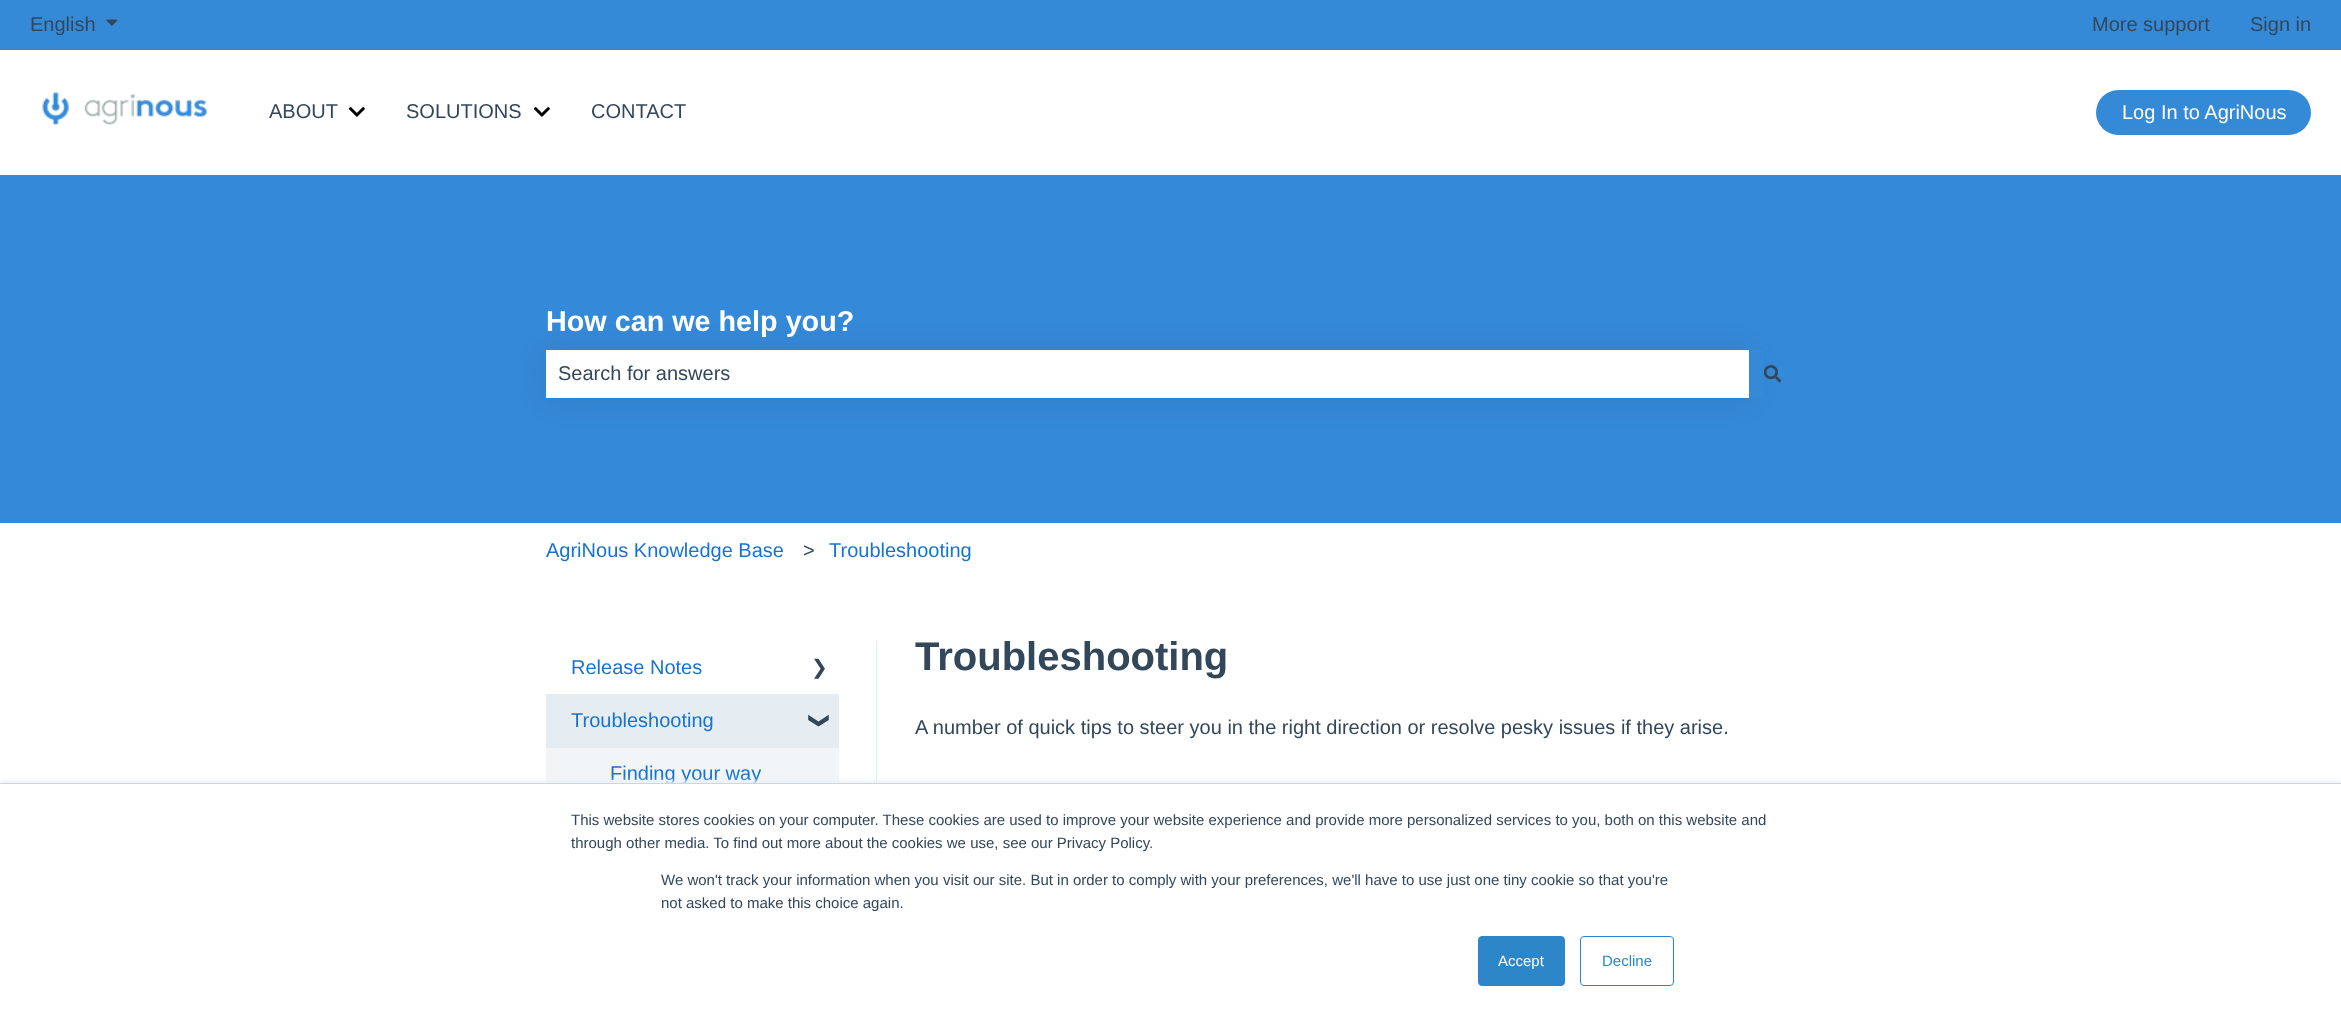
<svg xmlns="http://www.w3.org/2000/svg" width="2341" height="1018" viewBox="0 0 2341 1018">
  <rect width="100%" height="100%" fill="rgb(255,255,255)"/>
  <rect x="0" y="0" width="2341" height="50" fill="rgb(53,138,216)"/>
  <text x="30" y="31" font-family="Liberation Sans" font-size="20" fill="rgb(51,71,91)">English</text>
  <image x="106" y="19" width="12" height="7" href="pic1.png"/>
  <g font-family="Liberation Sans" font-size="20" fill="rgb(51,71,91)">
    <text x="2092" y="31">More support</text>
    <text x="2250" y="31">Sign in</text>
  </g>
  <image x="42" y="92" width="166" height="34" href="pic2.png"/>
  <text x="269" y="118" font-family="Liberation Sans" font-size="20" fill="rgb(51,71,91)">ABOUT</text>
  <image x="348" y="107" width="17" height="10" href="pic3.png"/>
  <text x="406" y="118" font-family="Liberation Sans" font-size="20" fill="rgb(51,71,91)">SOLUTIONS</text>
  <image x="533" y="107" width="17" height="10" href="pic3.png"/>
  <text x="591" y="118" font-family="Liberation Sans" font-size="20" fill="rgb(51,71,91)">CONTACT</text>
  <rect x="2096" y="90" width="215" height="45" rx="22.5" fill="rgb(53,138,216)"/>
  <text x="2122" y="119" font-family="Liberation Sans" font-size="20" fill="rgb(255,255,255)">Log In to AgriNous</text>
  <rect x="0" y="175" width="2341" height="348" fill="rgb(52,137,216)"/>
  <text x="546" y="331" font-family="Liberation Sans" font-size="28.75" font-weight="bold" fill="rgb(255,255,255)">How can we help you?</text>
  <rect x="546" y="351" width="1203" height="48" fill="rgba(0,0,0,0.08)" filter="blur(15px)"/>
  <rect x="546" y="350" width="1203" height="48" fill="rgb(255,255,255)"/>
  <text x="558" y="380" font-family="Liberation Sans" font-size="20" fill="rgb(51,71,91)">Search for answers</text>
  <rect x="1749" y="350" width="15" height="48" fill="rgb(53,138,216)"/>
  <image x="1764" y="365" width="17" height="18" href="pic4.png"/>
  <text x="546" y="557" font-family="Liberation Sans" font-size="20" fill="rgb(23,115,209)">AgriNous Knowledge Base</text>
  <text x="803" y="557" font-family="Liberation Sans" font-size="20" fill="rgb(51,71,91)">&gt;</text>
  <text x="829" y="557" font-family="Liberation Sans" font-size="20" fill="rgb(23,115,209)">Troubleshooting</text>
  <rect x="876" y="641" width="1" height="142" fill="rgb(226,235,244)"/>
  <text x="571" y="674" font-family="Liberation Sans" font-size="20" fill="rgb(23,115,209)">Release Notes</text>
  <text x="811" y="674" font-family="DejaVu Sans" font-size="20" fill="rgb(51,71,91)">❯</text>
  <rect x="546" y="748" width="293" height="35" fill="rgb(241,245,248)"/>
  <rect x="546" y="694" width="293" height="54" fill="rgb(229,236,242)"/>
  <text x="571" y="727" font-family="Liberation Sans" font-size="20" fill="rgb(23,115,209)">Troubleshooting</text>
  <text x="813" y="712" transform="rotate(90 813 712)" font-family="DejaVu Sans" font-size="20" font-weight="bold" fill="rgb(51,71,91)">❯</text>
  <text x="610" y="780" font-family="Liberation Sans" font-size="20" fill="rgb(23,115,209)">Finding your way</text>
  <text x="915" y="670" font-family="Liberation Sans" font-size="40" font-weight="bold" fill="rgb(51,71,91)">Troubleshooting</text>
  <text x="915" y="734" font-family="Liberation Sans" font-size="20" fill="rgb(51,71,91)">A number of quick tips to steer you in the right direction or resolve pesky issues if they arise.</text>
  <rect x="0" y="781" width="2341" height="237" fill="rgb(234,240,246)" filter="blur(2px)"/>
  <rect x="0" y="784" width="2341" height="234" fill="rgb(255,255,255)"/>
  <rect x="0" y="783" width="2341" height="1" fill="rgb(203,214,226)"/>
  <g font-family="Liberation Sans" font-size="15" fill="rgb(51,71,91)">
    <text>
      <tspan x="571" y="825">This website stores cookies on your computer. These cookies are used to improve your website experience and provide more personalized services to you, both on this website and</tspan>
      <tspan x="571" y="848">through other media. To find out more about the cookies we use, see our Privacy Policy.</tspan>
    </text>
    <text>
      <tspan x="661" y="885">We won't track your information when you visit our site. But in order to comply with your preferences, we'll have to use just one tiny cookie so that you're</tspan>
      <tspan x="661" y="908">not asked to make this choice again.</tspan>
    </text>
  </g>
  <rect x="1478.5" y="936.5" width="86" height="49" rx="3.5" fill="rgb(44,134,200)" stroke="rgb(44,134,200)"/>
  <text x="1498" y="966" font-family="Liberation Sans" font-size="15" fill="rgb(255,255,255)">Accept</text>
  <rect x="1580.5" y="936.5" width="93" height="49" rx="3.5" fill="none" stroke="rgb(44,134,200)"/>
  <text x="1602" y="966" font-family="Liberation Sans" font-size="15" fill="rgb(44,134,200)">Decline</text>
</svg>
